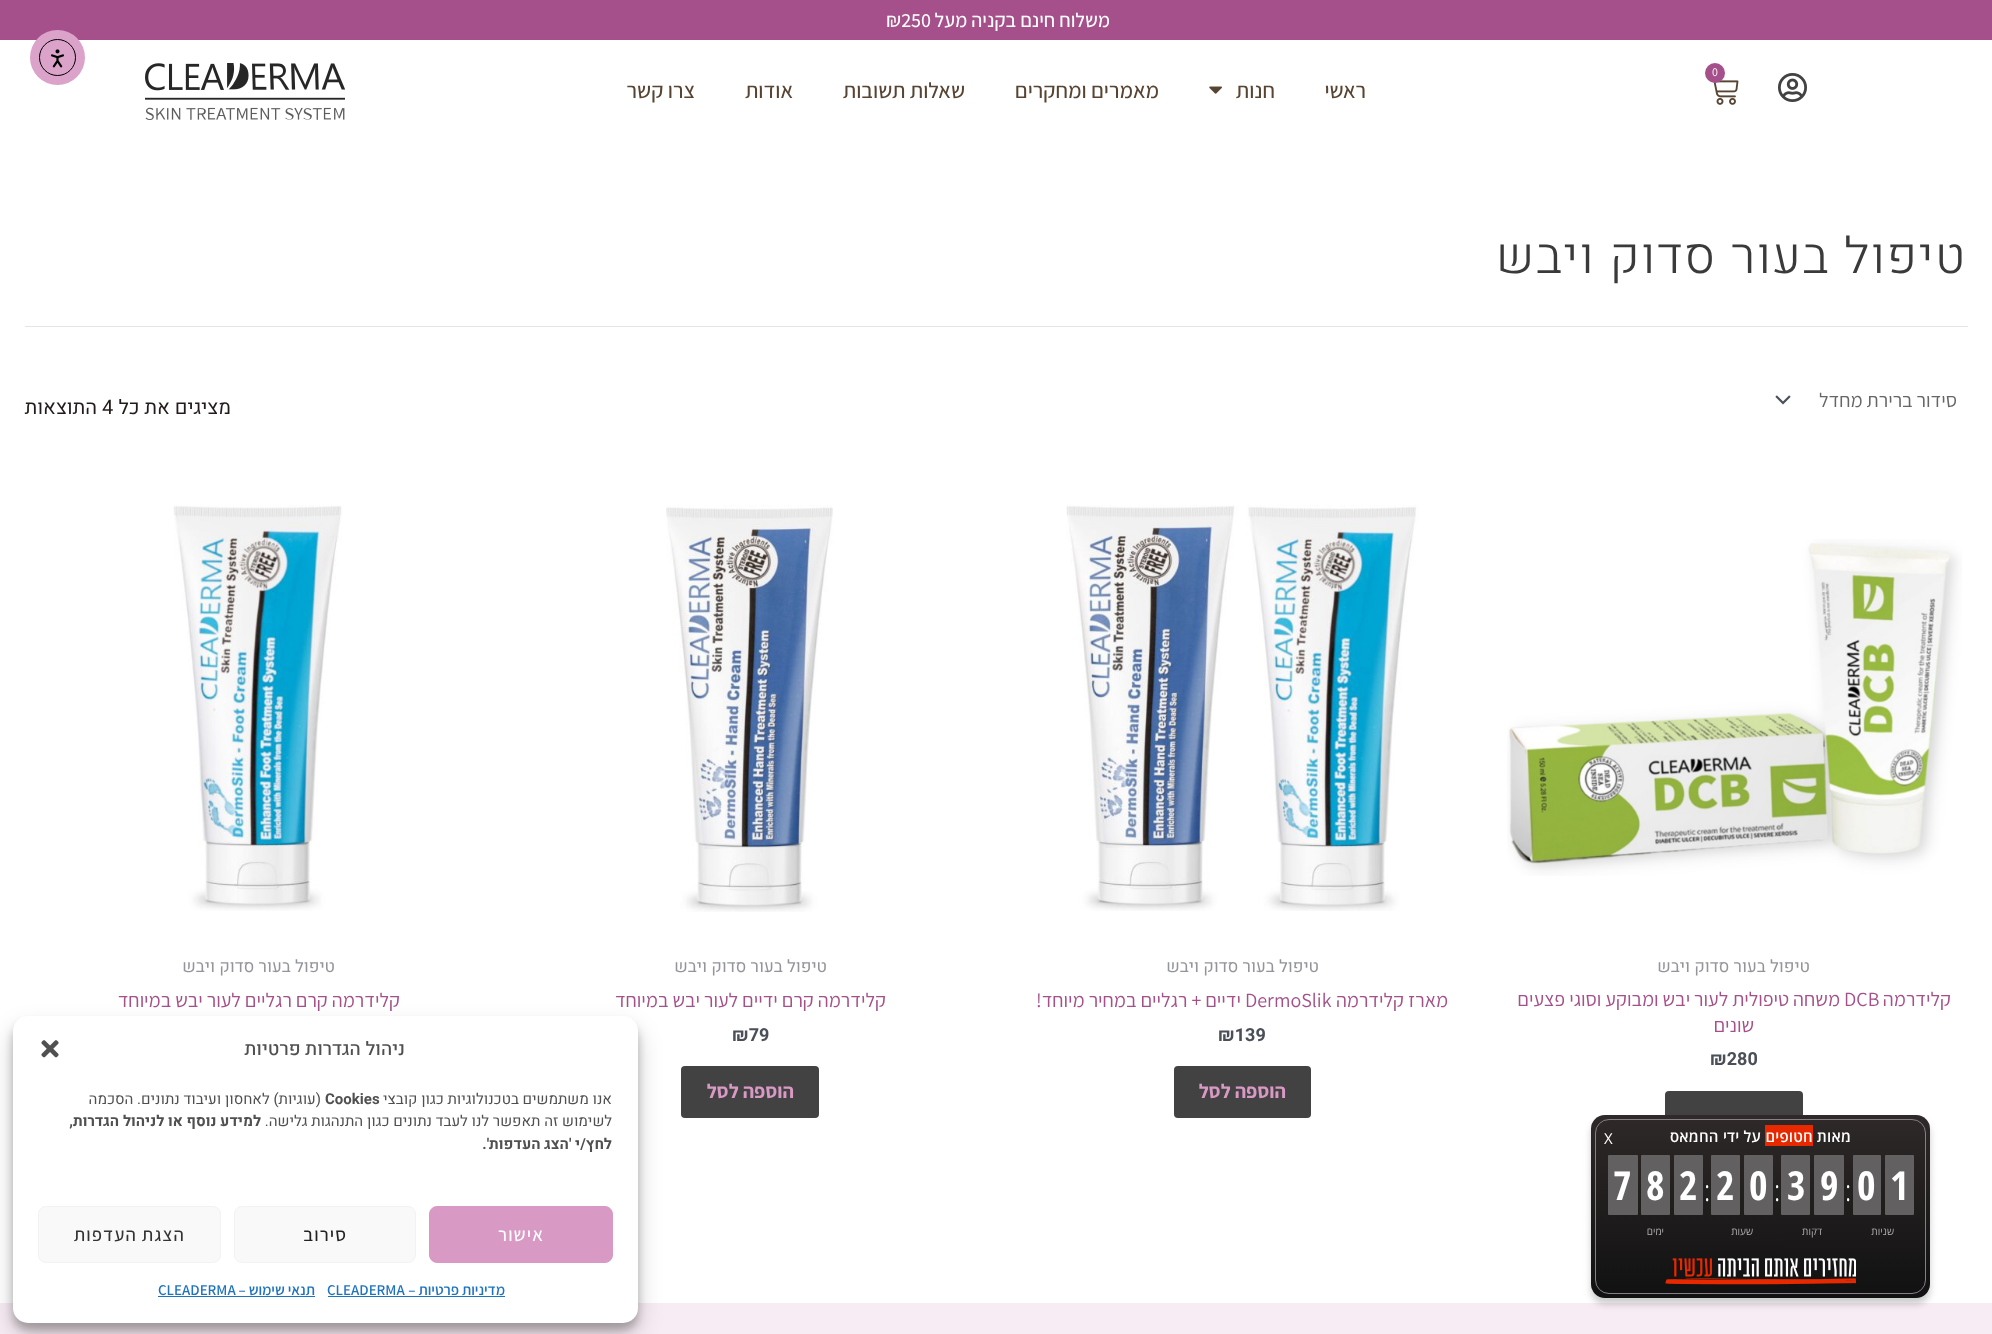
<svg xmlns="http://www.w3.org/2000/svg" width="1992" height="1334" viewBox="0 0 1992 1334">
  <defs>
    <linearGradient id="g1" gradientUnits="userSpaceOnUse" x1="1761" y1="1115" x2="1761" y2="1298"><stop offset="0" stop-color="rgb(47,41,41)"/><stop offset="1" stop-color="rgb(17,17,17)"/></linearGradient>
  </defs>
  <rect width="100%" height="100%" fill="rgb(255,255,255)"/>
  <rect x="0" y="0" width="1992" height="40" fill="rgb(165,80,138)"/>
  <text x="1110" y="27" font-family="Assistant" font-size="20" font-weight="500" direction="rtl" fill="rgb(255,255,255)">משלוח חינם בקניה מעל</text>
  <text x="886" y="27" font-family="Assistant" font-size="20" font-weight="500" fill="rgb(255,255,255)">₪250</text>
  <image x="1713" y="80" width="26" height="25" href="pic1.png"/>
  <circle cx="1715" cy="73" r="10" fill="rgb(165,80,138)"/>
  <text x="1712" y="76" font-family="Assistant" font-size="12" letter-spacing="1.1" fill="rgb(255,255,255)">0</text>
  <image x="1778" y="73" width="29" height="29" href="pic2.png"/>
  <image x="145" y="63" width="200" height="57" href="pic3.png"/>
  <g font-family="Assistant" font-size="22" font-weight="500" direction="rtl" fill="rgb(88,68,50)">
    <text x="1366" y="98">ראשי</text>
    <text x="1275" y="98">חנות</text>
  </g>
  <image x="1209" y="86" width="13" height="8" href="pic4.png"/>
  <g font-family="Assistant" font-size="22" font-weight="500" direction="rtl" fill="rgb(88,68,50)">
    <text x="1159" y="98">מאמרים ומחקרים</text>
    <text x="965" y="98">שאלות תשובות</text>
    <text x="793" y="98">אודות</text>
    <text x="695" y="98">צרו קשר</text>
  </g>
  <rect x="25" y="326" width="1943" height="1" fill="rgb(229,229,229)"/>
  <text x="1967" y="273" font-family="Heebo" font-size="50" font-weight="300" letter-spacing="1.75" direction="rtl" fill="rgb(58,58,58)">טיפול בעור סדוק ויבש</text>
  <image x="1775" y="395" width="16" height="10" href="pic5.png"/>
  <text x="1957" y="407" font-family="Assistant" font-size="20" direction="rtl" fill="rgb(102,102,102)">סידור ברירת מחדל</text>
  <text x="231" y="414" font-family="Heebo" font-size="20" direction="rtl" fill="rgb(34,27,25)">מציגים את כל</text>
  <text x="102" y="414" font-family="Heebo" font-size="20" fill="rgb(34,27,25)">4</text>
  <text x="97" y="414" font-family="Heebo" font-size="20" direction="rtl" fill="rgb(34,27,25)">התוצאות</text>
  <image x="1507" y="539" width="455" height="337" href="pic6.png"/>
  <text x="1810" y="972" font-family="Heebo" font-size="17" direction="rtl" fill="rgb(147,149,155)">טיפול בעור סדוק ויבש</text>
  <text x="1951" y="1006" font-family="Assistant" font-size="20" direction="rtl" fill="rgb(165,80,138)">קלידרמה</text>
  <text x="1844" y="1006" font-family="Assistant" font-size="20" fill="rgb(165,80,138)">DCB</text>
  <g font-family="Assistant" font-size="20" direction="rtl" fill="rgb(165,80,138)">
    <text x="1840" y="1006">משחה טיפולית לעור יבש ומבוקע וסוגי פצעים</text>
    <text x="1754" y="1032">שונים</text>
  </g>
  <text x="1710" y="1065" font-family="Heebo" font-size="18" font-weight="bold" fill="rgb(75,79,88)">₪280</text>
  <rect x="1665" y="1091" width="138" height="52" rx="4" fill="rgb(66,66,66)"/>
  <image x="1066" y="505" width="352" height="406" href="pic7.png"/>
  <text x="1319" y="972" font-family="Heebo" font-size="17" direction="rtl" fill="rgb(147,149,155)">טיפול בעור סדוק ויבש</text>
  <text x="1448" y="1007" font-family="Assistant" font-size="20" direction="rtl" fill="rgb(165,80,138)">מארז קלידרמה</text>
  <text x="1245" y="1007" font-family="Assistant" font-size="20" fill="rgb(165,80,138)">DermoSlik</text>
  <text x="1241" y="1007" font-family="Assistant" font-size="20" direction="rtl" fill="rgb(165,80,138)">ידיים + רגליים במחיר מיוחד!</text>
  <text x="1218" y="1041" font-family="Heebo" font-size="18" font-weight="bold" fill="rgb(75,79,88)">₪139</text>
  <rect x="1174" y="1066" width="137" height="52" rx="4" fill="rgb(66,66,66)"/>
  <text x="1286" y="1098" font-family="Assistant" font-size="20" font-weight="bold" direction="rtl" fill="rgb(217,153,197)">הוספה לסל</text>
  <image x="666" y="505" width="167" height="407" href="pic8.png"/>
  <text x="827" y="972" font-family="Heebo" font-size="17" direction="rtl" fill="rgb(147,149,155)">טיפול בעור סדוק ויבש</text>
  <text x="886" y="1007" font-family="Assistant" font-size="20" direction="rtl" fill="rgb(165,80,138)">קלידרמה קרם ידיים לעור יבש במיוחד</text>
  <text x="732" y="1041" font-family="Heebo" font-size="18" font-weight="bold" fill="rgb(75,79,88)">₪79</text>
  <rect x="681" y="1066" width="138" height="52" rx="4" fill="rgb(66,66,66)"/>
  <text x="794" y="1098" font-family="Assistant" font-size="20" font-weight="bold" direction="rtl" fill="rgb(217,153,197)">הוספה לסל</text>
  <image x="173" y="505" width="169" height="406" href="pic9.png"/>
  <text x="335" y="972" font-family="Heebo" font-size="17" direction="rtl" fill="rgb(147,149,155)">טיפול בעור סדוק ויבש</text>
  <text x="400" y="1007" font-family="Assistant" font-size="20" direction="rtl" fill="rgb(165,80,138)">קלידרמה קרם רגליים לעור יבש במיוחד</text>
  <rect x="0" y="1303" width="1992" height="31" fill="rgb(248,236,244)"/>
  <circle cx="57.5" cy="57.5" r="27.5" fill="rgb(219,163,202)"/>
  <circle cx="57.5" cy="57.5" r="18" fill="none" stroke="rgb(0,0,0)"/>
  <image x="50" y="49" width="14" height="19" href="pic10.png"/>
  <rect x="1591" y="1121" width="339" height="183" rx="14" fill="rgba(0,0,0,0.2)" filter="blur(3.5px)"/>
  <rect x="1591" y="1115" width="339" height="183" rx="14" fill="url(#g1)"/>
  <rect x="1595.5" y="1119.5" width="330" height="174" rx="13.5" fill="none" stroke="rgb(134,127,138)"/>
  <text x="1851" y="1142" font-family="Open Sans" font-size="15" font-weight="600" letter-spacing="0.25" direction="rtl" fill="rgb(255,255,255)">מאות</text>
  <rect x="1765" y="1125" width="48" height="21" fill="rgb(232,41,0)"/>
  <g font-family="Open Sans" font-size="15" font-weight="600" letter-spacing="0.25" direction="rtl" fill="rgb(255,255,255)">
    <text x="1813" y="1142">חטופים</text>
    <text x="1761" y="1142">על ידי החמאס</text>
  </g>
  <rect x="1885" y="1155" width="29" height="60" rx="1" fill="rgb(98,96,96)"/>
  <text x="1890" y="1200" font-family="Open Sans Condensed" font-size="40" font-weight="bold" fill="rgb(255,255,255)">1</text>
  <rect x="1853" y="1155" width="28" height="60" rx="1" fill="rgb(98,96,96)"/>
  <text x="1857" y="1200" font-family="Open Sans Condensed" font-size="40" font-weight="bold" fill="rgb(255,255,255)">0</text>
  <text x="1894" y="1235" font-family="Open Sans" font-size="10" direction="rtl" fill="rgb(175,175,175)">שניות</text>
  <text x="1845" y="1201" font-family="Open Sans Condensed" font-size="30" font-weight="300" fill="rgb(255,255,255)">:</text>
  <rect x="1814" y="1155" width="30" height="60" rx="1" fill="rgb(98,96,96)"/>
  <text x="1820" y="1200" font-family="Open Sans Condensed" font-size="40" font-weight="bold" fill="rgb(255,255,255)">9</text>
  <rect x="1781" y="1155" width="29" height="60" rx="1" fill="rgb(98,96,96)"/>
  <text x="1787" y="1200" font-family="Open Sans Condensed" font-size="40" font-weight="bold" fill="rgb(255,255,255)">3</text>
  <text x="1822" y="1235" font-family="Open Sans" font-size="10" direction="rtl" fill="rgb(175,175,175)">דקות</text>
  <text x="1774" y="1201" font-family="Open Sans Condensed" font-size="30" font-weight="300" fill="rgb(255,255,255)">:</text>
  <rect x="1744" y="1155" width="29" height="60" rx="1" fill="rgb(98,96,96)"/>
  <text x="1749" y="1200" font-family="Open Sans Condensed" font-size="40" font-weight="bold" fill="rgb(255,255,255)">0</text>
  <rect x="1711" y="1155" width="29" height="60" rx="1" fill="rgb(98,96,96)"/>
  <text x="1716" y="1200" font-family="Open Sans Condensed" font-size="40" font-weight="bold" fill="rgb(255,255,255)">2</text>
  <text x="1753" y="1235" font-family="Open Sans" font-size="10" direction="rtl" fill="rgb(175,175,175)">שעות</text>
  <text x="1704" y="1201" font-family="Open Sans Condensed" font-size="30" font-weight="300" fill="rgb(255,255,255)">:</text>
  <rect x="1674" y="1155" width="29" height="60" rx="1" fill="rgb(98,96,96)"/>
  <text x="1679" y="1200" font-family="Open Sans Condensed" font-size="40" font-weight="bold" fill="rgb(255,255,255)">2</text>
  <rect x="1641" y="1155" width="29" height="60" rx="1" fill="rgb(98,96,96)"/>
  <text x="1646" y="1200" font-family="Open Sans Condensed" font-size="40" font-weight="bold" fill="rgb(255,255,255)">8</text>
  <rect x="1608" y="1155" width="30" height="60" rx="1" fill="rgb(98,96,96)"/>
  <text x="1613" y="1200" font-family="Open Sans Condensed" font-size="40" font-weight="bold" fill="rgb(255,255,255)">7</text>
  <text x="1664" y="1235" font-family="Open Sans" font-size="10" direction="rtl" fill="rgb(175,175,175)">ימים</text>
  <image x="1665" y="1258" width="191" height="27" href="pic11.png"/>
  <text x="1604" y="1144" font-family="Open Sans" font-size="15" fill="rgb(255,255,255)">X</text>
  <rect x="13" y="1024" width="625" height="306" rx="15" fill="rgba(0,0,0,0.23)" filter="blur(4px)"/>
  <rect x="13" y="1029" width="625" height="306" rx="15" fill="rgba(0,0,0,0.19)" filter="blur(12.5px)"/>
  <rect x="13" y="1016" width="625" height="307" rx="15" fill="rgb(255,255,255)"/>
  <text x="405" y="1055" font-family="Heebo" font-size="18.75" font-weight="500" direction="rtl" fill="rgb(80,80,80)">ניהול הגדרות פרטיות</text>
  <image x="41" y="1040" width="18" height="18" href="pic12.png"/>
  <text x="612" y="1104" font-family="Heebo" font-size="15" direction="rtl" fill="rgb(80,80,80)">אנו משתמשים בטכנולוגיות כגון קובצי</text>
  <text x="325" y="1104" font-family="Heebo" font-size="15" font-weight="bold" fill="rgb(80,80,80)">Cookies</text>
  <g font-family="Heebo" font-size="15" direction="rtl" fill="rgb(80,80,80)">
    <text x="321" y="1104">(עוגיות) לאחסון ועיבוד נתונים. הסכמה</text>
    <text x="612" y="1126">לשימוש זה תאפשר לנו לעבד נתונים כגון התנהגות גלישה.</text>
  </g>
  <g font-family="Heebo" font-size="15" font-weight="bold" direction="rtl" fill="rgb(80,80,80)">
    <text x="261" y="1126">למידע נוסף או לניהול הגדרות,</text>
    <text x="612" y="1149">לחץ/י 'הצג העדפות'.</text>
  </g>
  <rect x="429.5" y="1206.5" width="183" height="56" rx="7.5" fill="rgb(216,153,196)" stroke="rgb(216,153,196)"/>
  <text x="544" y="1241" font-family="Assistant" font-size="18.75" font-weight="500" letter-spacing="1.1" direction="rtl" fill="rgb(255,255,255)">אישור</text>
  <rect x="234.5" y="1206.5" width="181" height="56" rx="7.5" fill="rgb(249,249,249)" stroke="rgb(242,242,242)"/>
  <text x="347" y="1241" font-family="Assistant" font-size="18.75" font-weight="500" letter-spacing="1.1" direction="rtl" fill="rgb(34,34,34)">סירוב</text>
  <rect x="38.5" y="1206.5" width="182" height="56" rx="7.5" fill="rgb(249,249,249)" stroke="rgb(242,242,242)"/>
  <text x="185" y="1241" font-family="Assistant" font-size="18.75" font-weight="500" letter-spacing="1.1" direction="rtl" fill="rgb(51,51,51)">הצגת העדפות</text>
  <text x="505" y="1295" font-family="Assistant" font-size="15" font-weight="600" direction="rtl" fill="rgb(30,115,190)">מדיניות פרטיות –</text>
  <rect x="328" y="1296" width="177" height="1" fill="rgb(30,115,190)"/>
  <text x="327" y="1295" font-family="Assistant" font-size="15" font-weight="600" fill="rgb(30,115,190)">CLEADERMA</text>
  <text x="315" y="1295" font-family="Assistant" font-size="15" font-weight="600" direction="rtl" fill="rgb(30,115,190)">תנאי שימוש –</text>
  <rect x="158" y="1296" width="157" height="1" fill="rgb(30,115,190)"/>
  <text x="158" y="1295" font-family="Assistant" font-size="15" font-weight="600" fill="rgb(30,115,190)">CLEADERMA</text>
</svg>
